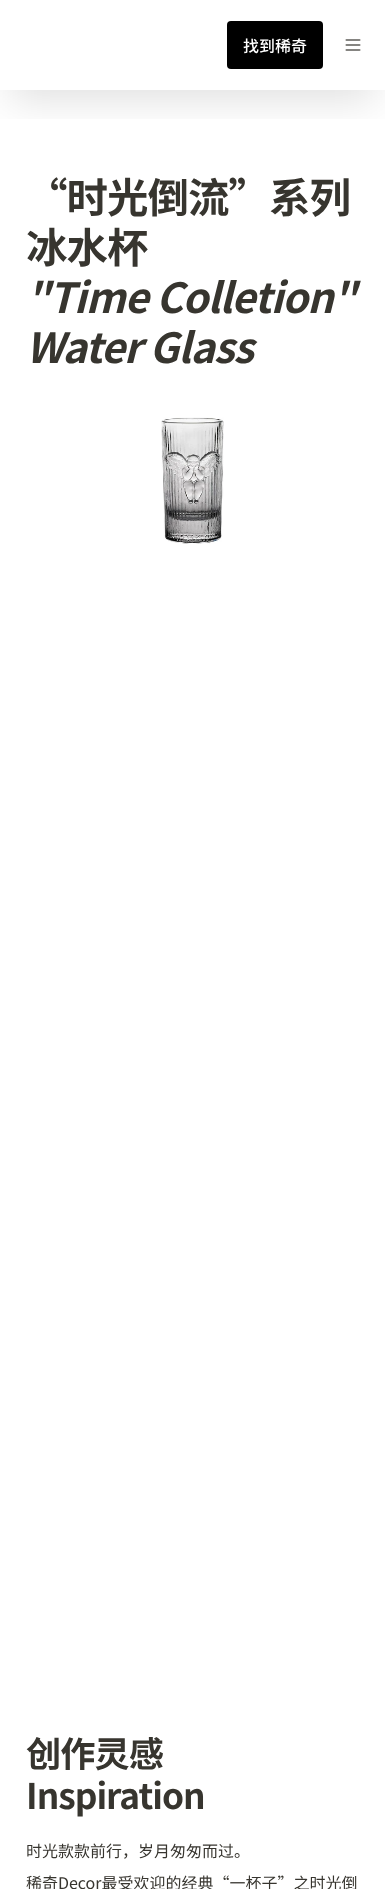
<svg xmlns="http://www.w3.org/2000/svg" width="385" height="1889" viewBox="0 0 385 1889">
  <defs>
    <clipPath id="clip1"><rect x="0" y="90" width="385" height="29"/></clipPath>
  </defs>
  <rect width="100%" height="100%" fill="rgb(255,255,255)"/>
  <g clip-path="url(#clip1)">
    <rect x="10" y="30" width="365" height="70" fill="rgba(0,0,0,0.12)" filter="blur(20px)"/>
  </g>
  <rect x="227" y="21" width="96" height="48" rx="4" fill="rgb(0,0,0)"/>
  <text x="243" y="52" font-family="Noto Sans SC" font-size="16" font-weight="500" fill="rgb(255,255,255)">找到稀奇</text>
  <image x="345" y="39" width="16" height="12" href="pic1.png"/>
  <g font-family="Noto Sans SC" font-size="41.5" font-weight="bold" letter-spacing="-1" fill="rgb(55,53,47)">
    <text>
      <tspan x="26" y="213">“时光倒流”系列</tspan>
      <tspan x="26" y="263">冰水杯</tspan>
    </text>
  </g>
  <g font-family="Noto Sans SC" font-size="41.5" font-weight="bold" font-style="italic" letter-spacing="-1" fill="rgb(55,53,47)">
    <text>
      <tspan x="26" y="313">"Time Colletion"</tspan>
      <tspan x="26" y="363">Water Glass</tspan>
    </text>
  </g>
  <image x="161" y="417" width="63" height="127" href="pic2.png"/>
  <g font-family="Noto Sans SC" font-size="35.25" font-weight="bold" letter-spacing="-1" fill="rgb(55,53,47)">
    <text>
      <tspan x="26" y="1767">创作灵感</tspan>
      <tspan x="26" y="1809">Inspiration</tspan>
    </text>
  </g>
  <g font-family="Noto Sans SC" font-size="16" fill="rgb(55,53,47)">
    <text x="26" y="1857">时光款款前行，岁月匆匆而过。</text>
    <text x="26" y="1889">稀奇Decor最受欢迎的经典“一杯子”之时光倒</text>
  </g>
</svg>
